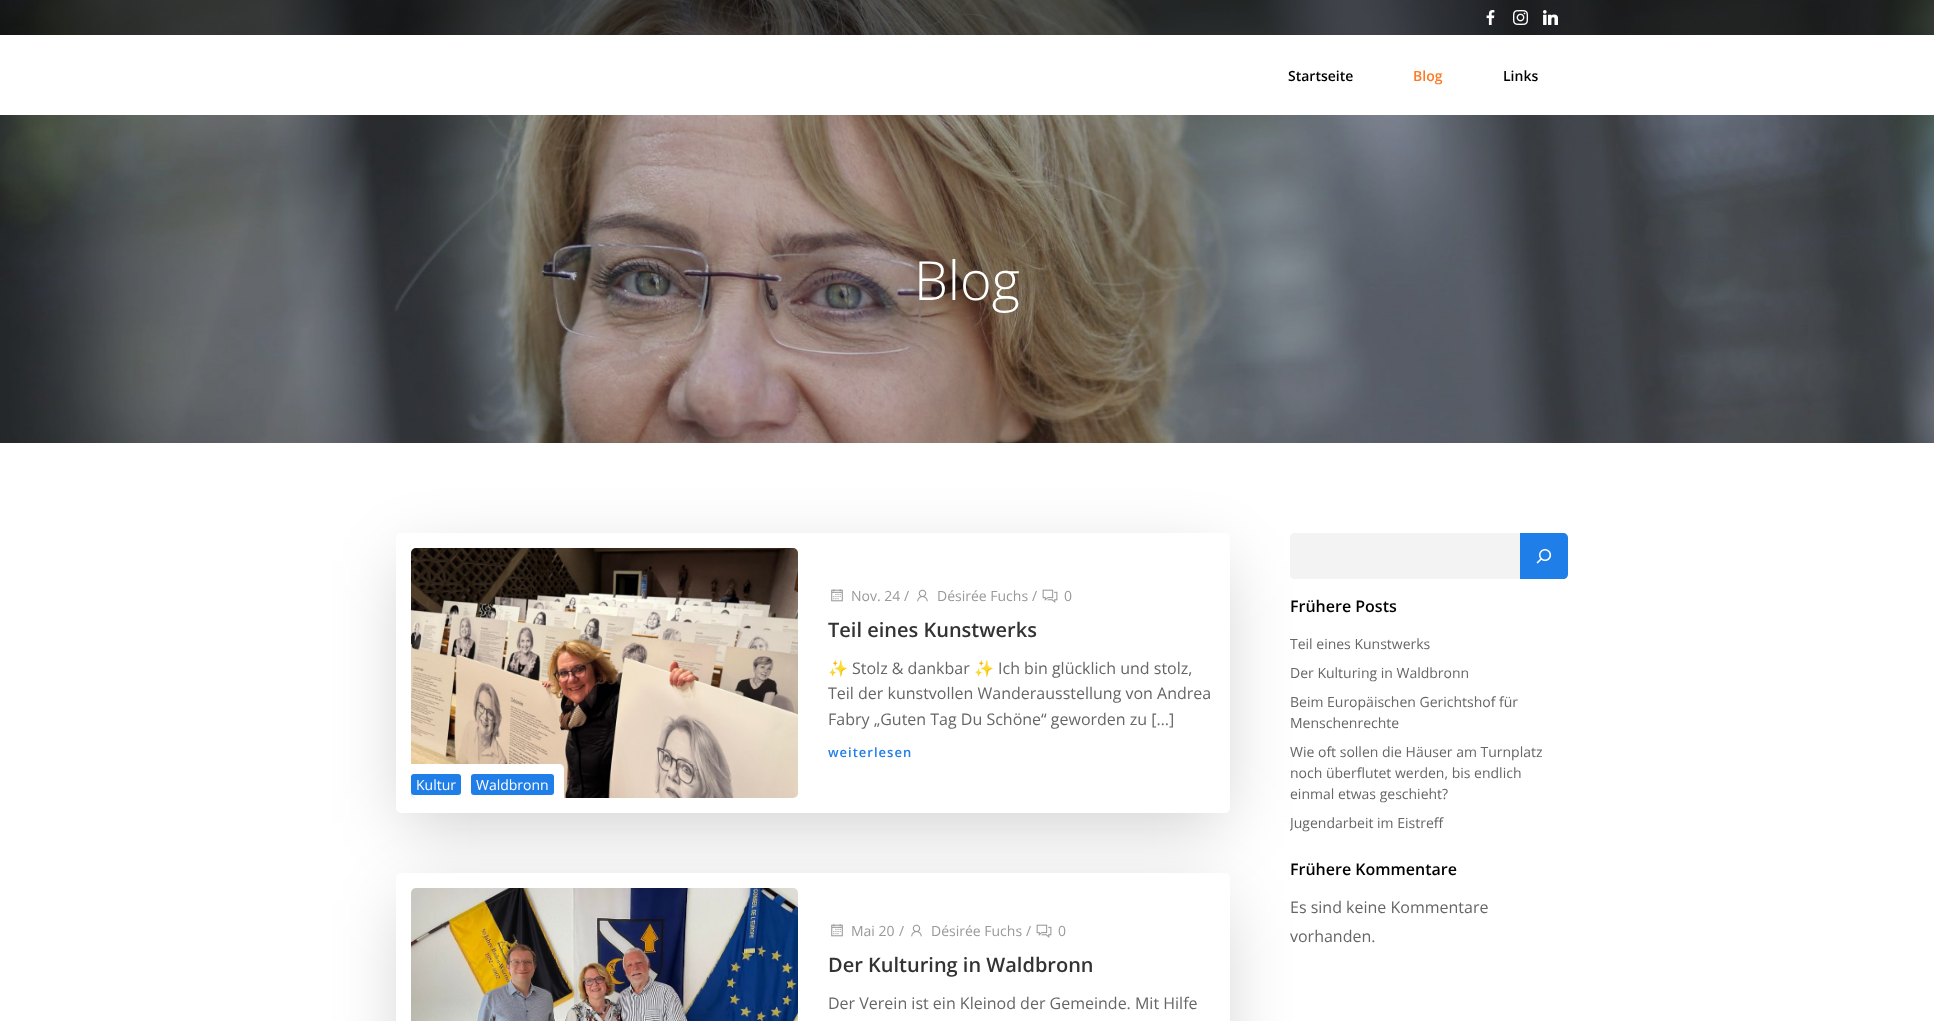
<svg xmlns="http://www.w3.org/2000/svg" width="1934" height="1021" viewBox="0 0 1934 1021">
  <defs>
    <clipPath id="clip1"><rect x="1290" y="594" width="278" height="243"/></clipPath>
  </defs>
  <rect width="100%" height="100%" fill="rgb(255,255,255)"/>
  <image x="0" y="0" width="1934" height="443" href="pic4.png"/>
  <rect x="0" y="0" width="1934" height="35" fill="rgba(0,0,0,0.5)"/>
  <image x="1486" y="10" width="9" height="15" href="pic1.png"/>
  <image x="1513" y="10" width="15" height="15" href="pic2.png"/>
  <image x="1543" y="10" width="15" height="15" href="pic3.png"/>
  <rect x="0" y="35" width="1934" height="80" fill="rgb(255,255,255)"/>
  <text x="1288" y="81" font-family="Open Sans" font-size="14" font-weight="600" fill="rgb(0,0,0)">Startseite</text>
  <text x="1413" y="81" font-family="Open Sans" font-size="14" font-weight="600" fill="rgb(252,122,35)">Blog</text>
  <text x="1503" y="81" font-family="Open Sans" font-size="14" font-weight="600" fill="rgb(0,0,0)">Links</text>
  <text x="914" y="300" font-family="Open Sans" font-size="54" font-weight="300" fill="rgb(255,255,255)">Blog</text>
  <rect x="406" y="562" width="814" height="260" fill="rgba(0,0,0,0.2)" filter="blur(35.5px)"/>
  <rect x="396" y="533" width="834" height="280" rx="5" fill="rgb(255,255,255)"/>
  <image x="831" y="589" width="12" height="13" href="pic5.png"/>
  <g font-family="Open Sans" font-size="14" fill="rgb(153,153,153)">
    <text x="851" y="601">Nov. 24</text>
    <text x="904" y="601">/</text>
  </g>
  <image x="917" y="589" width="11" height="13" href="pic6.png"/>
  <g font-family="Open Sans" font-size="14" fill="rgb(153,153,153)">
    <text x="937" y="601">Désirée Fuchs</text>
    <text x="1032" y="601">/</text>
  </g>
  <image x="1042" y="589" width="16" height="14" href="pic7.png"/>
  <text x="1064" y="601" font-family="Open Sans" font-size="14" fill="rgb(153,153,153)">0</text>
  <text x="828" y="637" font-family="Open Sans" font-size="20" font-weight="600" fill="rgb(51,51,51)">Teil eines Kunstwerks</text>
  <text x="828" y="674" font-family="Noto Color Emoji" font-size="16" fill="rgb(102,102,102)">✨</text>
  <text x="852" y="674" font-family="Open Sans" font-size="16" fill="rgb(102,102,102)">Stolz &amp; dankbar</text>
  <text x="974" y="674" font-family="Noto Color Emoji" font-size="16" fill="rgb(102,102,102)">✨</text>
  <g font-family="Open Sans" font-size="16" fill="rgb(102,102,102)">
    <text x="998" y="674">Ich bin glücklich und stolz,</text>
    <text>
      <tspan x="828" y="699">Teil der kunstvollen Wanderausstellung von Andrea</tspan>
      <tspan x="828" y="725">Fabry „Guten Tag Du Schöne“ geworden zu […]</tspan>
    </text>
  </g>
  <text x="828" y="757" font-family="Open Sans" font-size="13" font-weight="600" letter-spacing="1" fill="rgb(31,126,231)">weiterlesen</text>
  <image x="411" y="548" width="387" height="250" href="pic8.png"/>
  <rect x="406" y="902" width="814" height="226" fill="rgba(0,0,0,0.2)" filter="blur(35.5px)"/>
  <path d="M411 764H559C562 764 564 766 564 769V798H416C413 798 411 796 411 793Z" fill="rgb(255,255,255)"/>
  <rect x="411" y="774" width="50" height="21" rx="3" fill="rgb(31,126,231)"/>
  <text x="416" y="790" font-family="Open Sans" font-size="14" fill="rgb(255,255,255)">Kultur</text>
  <rect x="471" y="774" width="83" height="21" rx="3" fill="rgb(31,126,231)"/>
  <text x="476" y="790" font-family="Open Sans" font-size="14" fill="rgb(255,255,255)">Waldbronn</text>
  <rect x="396" y="873" width="834" height="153" rx="5" fill="rgb(255,255,255)"/>
  <image x="411" y="888" width="387" height="133" href="pic9.png"/>
  <image x="831" y="924" width="12" height="13" href="pic5.png"/>
  <g font-family="Open Sans" font-size="14" fill="rgb(153,153,153)">
    <text x="851" y="936">Mai 20</text>
    <text x="899" y="936">/</text>
  </g>
  <image x="911" y="924" width="11" height="13" href="pic6.png"/>
  <g font-family="Open Sans" font-size="14" fill="rgb(153,153,153)">
    <text x="931" y="936">Désirée Fuchs</text>
    <text x="1026" y="936">/</text>
  </g>
  <image x="1036" y="924" width="16" height="14" href="pic7.png"/>
  <text x="1058" y="936" font-family="Open Sans" font-size="14" fill="rgb(153,153,153)">0</text>
  <text x="828" y="972" font-family="Open Sans" font-size="20" font-weight="600" fill="rgb(51,51,51)">Der Kulturing in Waldbronn</text>
  <text x="828" y="1009" font-family="Open Sans" font-size="16" fill="rgb(102,102,102)">Der Verein ist ein Kleinod der Gemeinde. Mit Hilfe</text>
  <path d="M1295 533H1520V579H1295C1292 579 1290 577 1290 574V538C1290 535 1292 533 1295 533Z" fill="rgb(243,243,243)"/>
  <path d="M1520 533H1563C1566 533 1568 535 1568 538V574C1568 577 1566 579 1563 579H1520Z" fill="rgb(31,126,231)"/>
  <image x="1536" y="549" width="16" height="15" href="pic10.png"/>
  <text x="1290" y="612" font-family="Open Sans" font-size="16" font-weight="600" fill="rgb(0,0,0)">Frühere Posts</text>
  <g font-family="Open Sans" font-size="14" fill="rgb(102,102,102)">
    <text x="1290" y="649">Teil eines Kunstwerks</text>
    <text x="1290" y="678">Der Kulturing in Waldbronn</text>
    <text>
      <tspan x="1290" y="707">Beim Europäischen Gerichtshof für</tspan>
      <tspan x="1290" y="728">Menschenrechte</tspan>
    </text>
    <text>
      <tspan x="1290" y="757">Wie oft sollen die Häuser am Turnplatz</tspan>
      <tspan x="1290" y="778">noch überflutet werden, bis endlich</tspan>
      <tspan x="1290" y="799">einmal etwas geschieht?</tspan>
    </text>
  </g>
  <g clip-path="url(#clip1)">
    <text x="1290" y="828" font-family="Open Sans" font-size="14" fill="rgb(102,102,102)">Jugendarbeit im Eistreff</text>
  </g>
  <text x="1290" y="875" font-family="Open Sans" font-size="16" font-weight="600" fill="rgb(0,0,0)">Frühere Kommentare</text>
  <g font-family="Open Sans" font-size="16" fill="rgb(102,102,102)">
    <text>
      <tspan x="1290" y="913">Es sind keine Kommentare</tspan>
      <tspan x="1290" y="942">vorhanden.</tspan>
    </text>
  </g>
</svg>
